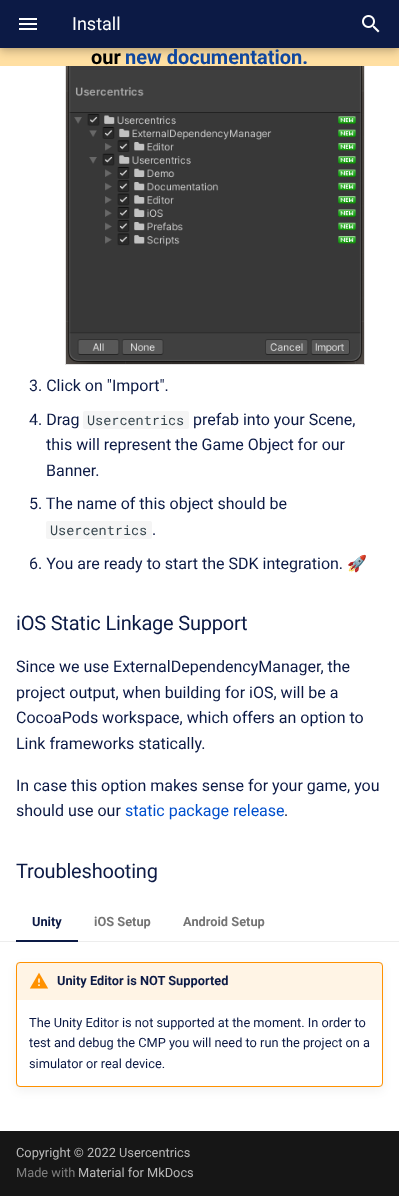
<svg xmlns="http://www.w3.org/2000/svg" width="399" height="1196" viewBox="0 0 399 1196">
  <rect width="100%" height="100%" fill="rgb(255,255,255)"/>
  <rect x="65.5" y="43.5" width="299" height="321" fill="none" stroke="rgb(222,222,222)"/>
  <rect x="0" y="48" width="399" height="18" fill="rgb(255,223,162)"/>
  <rect x="0" y="4" width="399" height="48" fill="rgba(0,0,0,0.2)" filter="blur(4px)"/>
  <rect x="0" y="0" width="399" height="48" fill="rgba(0,0,0,0.1)" filter="blur(2px)"/>
  <rect x="0" y="0" width="399" height="48" fill="rgb(12,26,69)"/>
  <image x="19" y="18" width="18" height="12" href="pic1.png"/>
  <text x="72" y="30" font-family="Roboto" font-size="18" fill="rgb(255,255,255)">Install</text>
  <image x="362" y="15" width="18" height="18" href="pic2.png"/>
  <text x="91" y="64" font-family="Roboto" font-size="20" font-weight="bold" fill="rgb(0,0,0)">our</text>
  <text x="125" y="64" font-family="Roboto" font-size="20" font-weight="bold" fill="rgb(15,70,158)">new documentation.</text>
  <image x="66" y="66" width="298" height="298" href="pic3.png"/>
  <g font-family="Roboto" font-size="16" fill="rgb(12,26,69)">
    <text x="29" y="391">3. Click on "Import".</text>
    <text x="29" y="425">4. Drag</text>
  </g>
  <rect x="83" y="411" width="106" height="18" rx="2" fill="rgb(245,245,245)"/>
  <text x="87" y="425" font-family="Roboto Mono" font-size="13.5" fill="rgb(54,70,78)">Usercentrics</text>
  <g font-family="Roboto" font-size="16" fill="rgb(12,26,69)">
    <text x="193" y="425">prefab into your Scene,</text>
    <text>
      <tspan x="46" y="450">this will represent the Game Object for our</tspan>
      <tspan x="46" y="476">Banner.</tspan>
    </text>
    <text x="29" y="509">5. The name of this object should be</text>
  </g>
  <rect x="46" y="521" width="106" height="18" rx="2" fill="rgb(245,245,245)"/>
  <text x="50" y="535" font-family="Roboto Mono" font-size="13.5" fill="rgb(54,70,78)">Usercentrics</text>
  <g font-family="Roboto" font-size="16" fill="rgb(12,26,69)">
    <text x="152" y="535">.</text>
    <text x="29" y="569">6. You are ready to start the SDK integration.</text>
  </g>
  <text x="347" y="569" font-family="Noto Color Emoji" font-size="16" fill="rgb(12,26,69)">🚀</text>
  <text x="16" y="630" font-family="Roboto" font-size="20" letter-spacing="-0.2" fill="rgb(12,26,69)">iOS Static Linkage Support</text>
  <g font-family="Roboto" font-size="16" fill="rgb(12,26,69)">
    <text>
      <tspan x="16" y="672">Since we use ExternalDependencyManager, the</tspan>
      <tspan x="16" y="698">project output, when building for iOS, will be a</tspan>
      <tspan x="16" y="723">CocoaPods workspace, which offers an option to</tspan>
      <tspan x="16" y="749">Link frameworks statically.</tspan>
    </text>
    <text>
      <tspan x="16" y="791">In case this option makes sense for your game, you</tspan>
      <tspan x="16" y="816">should use our</tspan>
    </text>
  </g>
  <text x="125" y="816" font-family="Roboto" font-size="16" fill="rgb(0,79,205)">static package release</text>
  <text x="284" y="816" font-family="Roboto" font-size="16" fill="rgb(12,26,69)">.</text>
  <text x="16" y="878" font-family="Roboto" font-size="20" letter-spacing="-0.2" fill="rgb(12,26,69)">Troubleshooting</text>
  <rect x="0" y="941" width="399" height="1" fill="rgb(237,237,237)"/>
  <text x="32" y="926" font-family="Roboto" font-size="12.8" font-weight="bold" fill="rgb(12,26,69)">Unity</text>
  <g font-family="Roboto" font-size="12.8" font-weight="bold" fill="rgb(117,117,117)">
    <text x="94" y="926">iOS Setup</text>
    <text x="183" y="926">Android Setup</text>
  </g>
  <rect x="16" y="940" width="62" height="2" fill="rgb(12,26,69)"/>
  <rect x="16" y="962" width="367" height="125" rx="4" fill="rgba(0,0,0,0.1)" filter="blur(0.5px)"/>
  <rect x="16" y="966" width="367" height="125" rx="4" fill="rgba(0,0,0,0.05)" filter="blur(5px)"/>
  <rect x="16.5" y="962.5" width="366" height="124" rx="3.5" fill="rgb(255,255,255)" stroke="rgb(255,145,0)"/>
  <path d="M19 963H380C381 963 382 964 382 965V1000H17V965C17 964 18 963 19 963Z" fill="rgba(255,145,0,0.1)"/>
  <image x="29" y="972" width="20" height="17" href="pic4.png"/>
  <text x="57" y="985" font-family="Roboto" font-size="12.8" font-weight="bold" fill="rgb(12,26,69)">Unity Editor is NOT Supported</text>
  <g font-family="Roboto" font-size="12.8" fill="rgb(12,26,69)">
    <text>
      <tspan x="29" y="1027">The Unity Editor is not supported at the moment. In order to</tspan>
      <tspan x="29" y="1047">test and debug the CMP you will need to run the project on a</tspan>
      <tspan x="29" y="1068">simulator or real device.</tspan>
    </text>
  </g>
  <rect x="0" y="1131" width="399" height="65" fill="rgb(22,22,22)"/>
  <text x="16" y="1157" font-family="Roboto" font-size="12.8" fill="rgb(185,185,185)">Copyright © 2022 Usercentrics</text>
  <text x="16" y="1177" font-family="Roboto" font-size="12.8" fill="rgb(127,127,127)">Made with</text>
  <text x="78" y="1177" font-family="Roboto" font-size="12.8" fill="rgb(185,185,185)">Material for MkDocs</text>
</svg>
